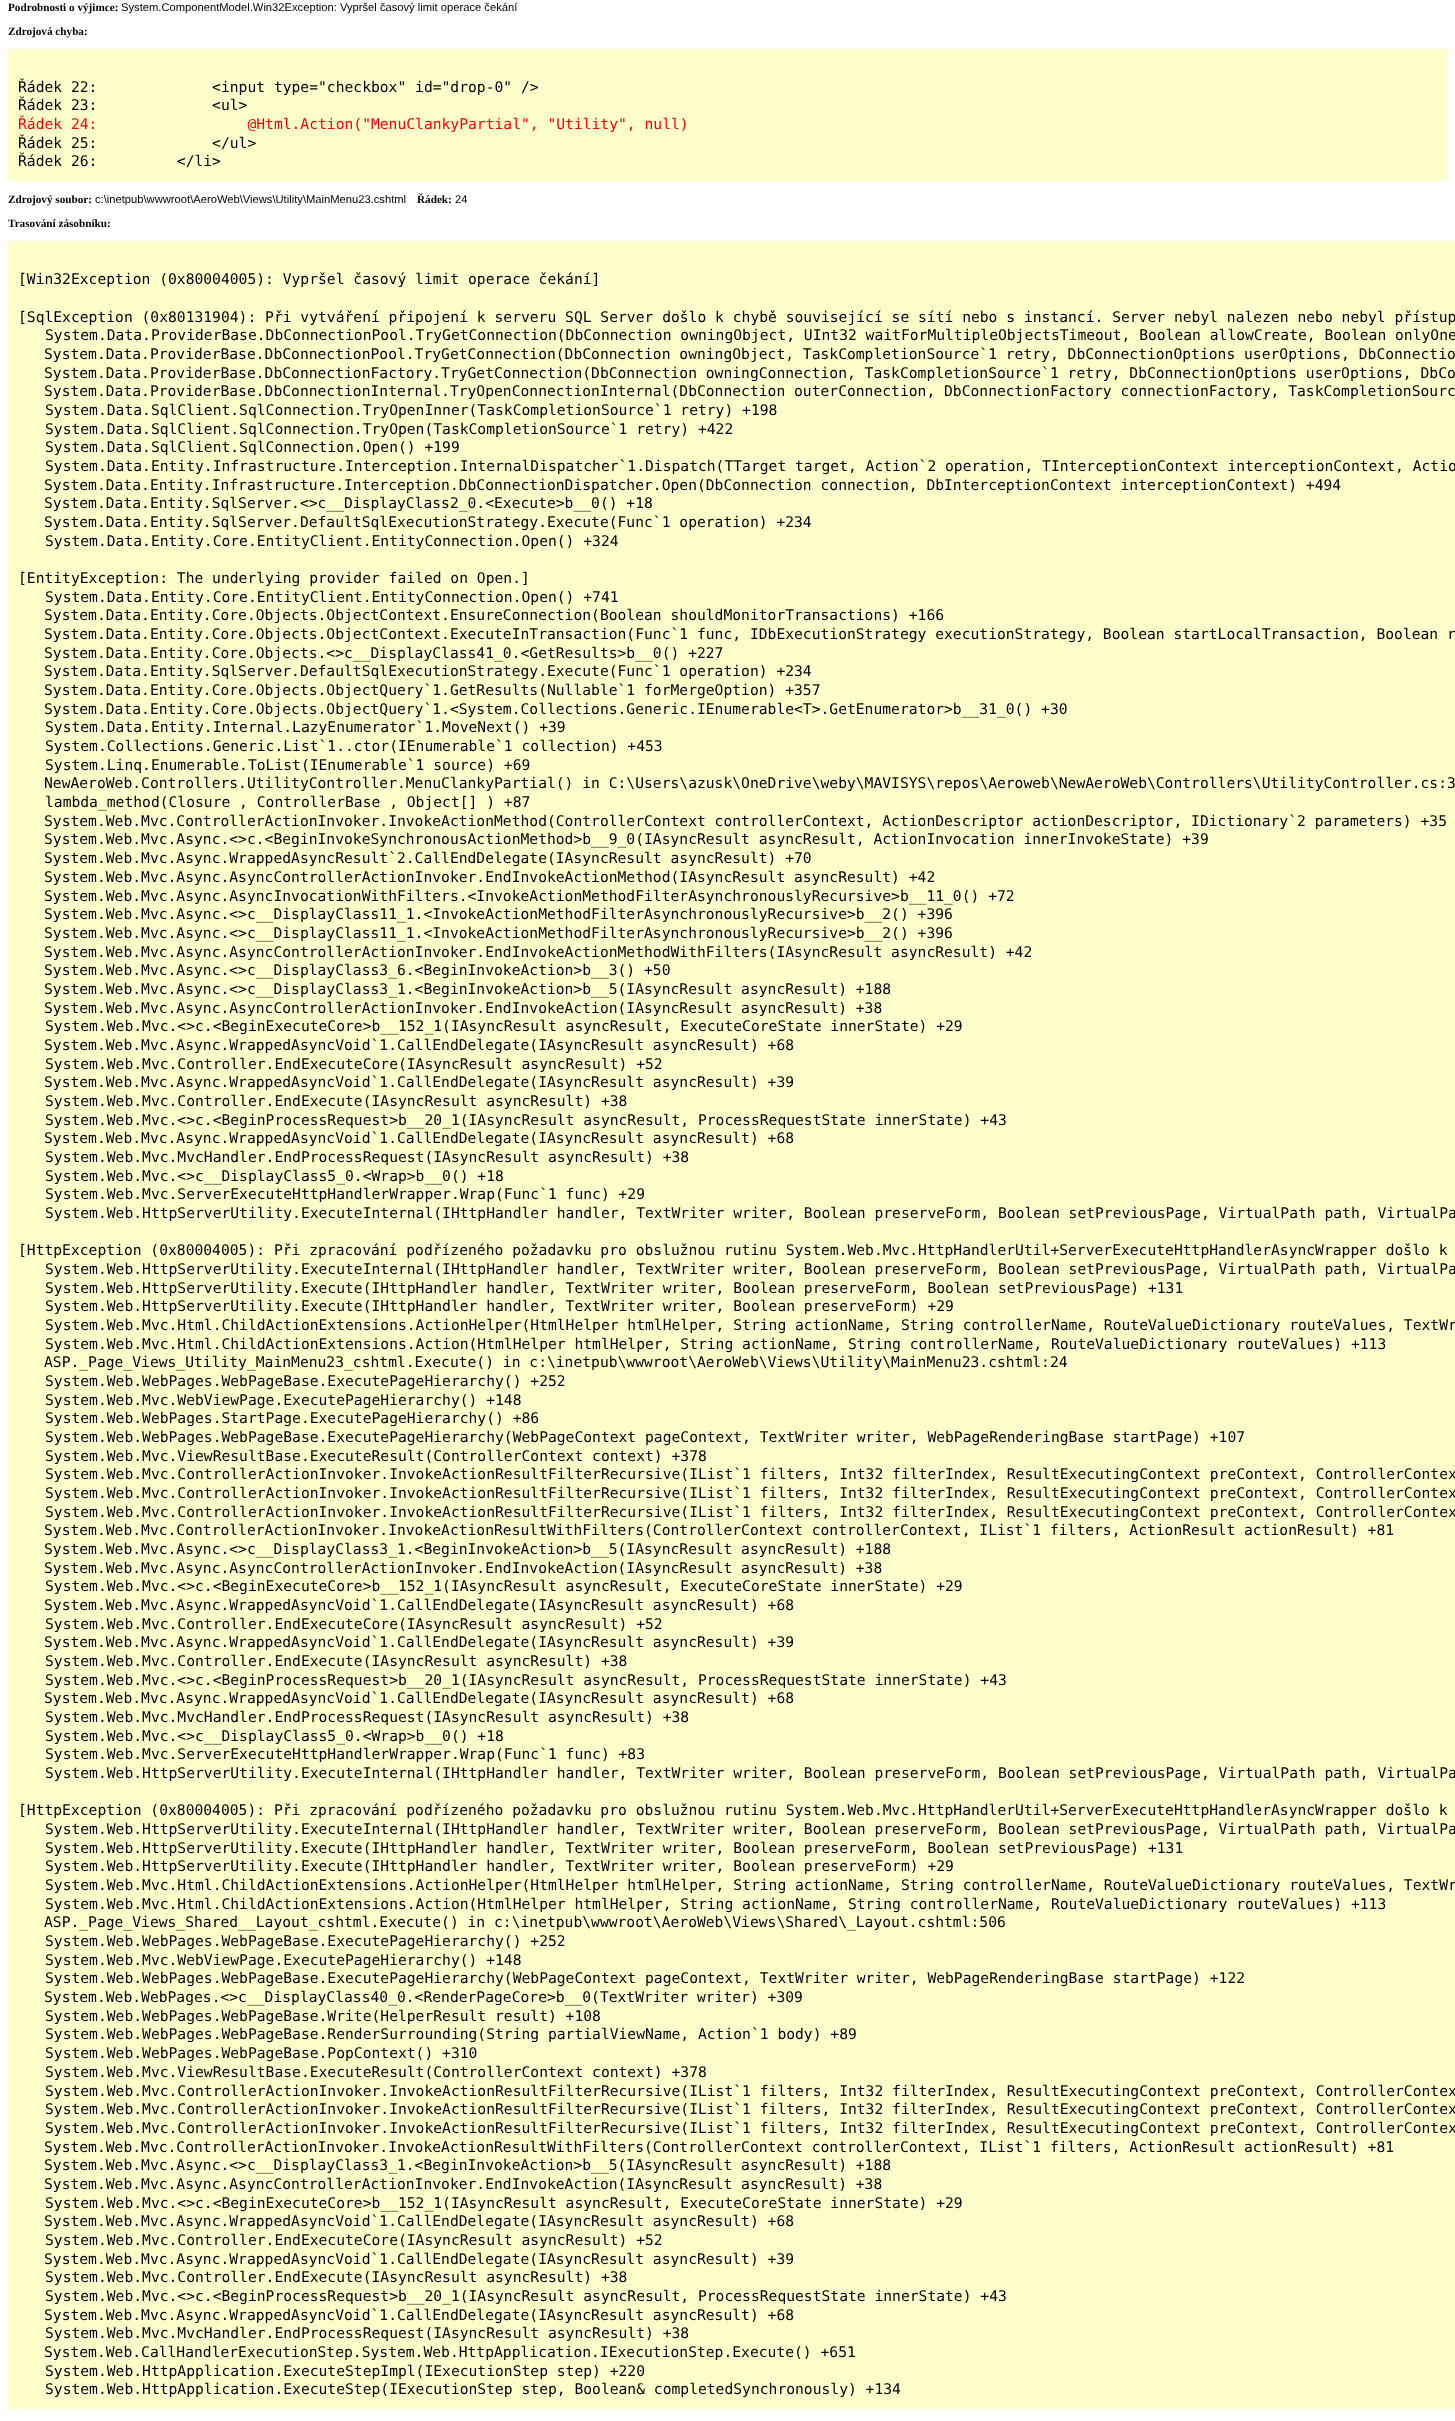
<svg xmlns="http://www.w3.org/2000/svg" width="1455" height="2421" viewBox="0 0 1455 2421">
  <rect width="100%" height="100%" fill="rgb(255,255,255)"/>
  <text x="8" y="11" font-family="Liberation Serif" font-size="11.2" font-weight="bold" fill="rgb(0,0,0)">Podrobnosti o výjimce:</text>
  <text x="121" y="11" font-family="Liberation Sans" font-size="11.2" fill="rgb(0,0,0)">System.ComponentModel.Win32Exception: Vypršel časový limit operace čekání</text>
  <text x="8" y="35" font-family="Liberation Serif" font-size="11.2" font-weight="bold" fill="rgb(0,0,0)">Zdrojová chyba:</text>
  <rect x="8" y="49" width="1439" height="132" fill="rgb(255,255,204)"/>
  <g font-family="DejaVu Sans Mono" font-size="14.67" fill="rgb(0,0,0)">
    <text xml:space="preserve"><tspan x="18" y="92">Řádek 22:             &lt;input type="checkbox" id="drop-0" /&gt;</tspan><tspan x="18" y="110">Řádek 23:             &lt;ul&gt;</tspan></text>
  </g>
  <text x="18" y="129" font-family="DejaVu Sans Mono" font-size="14.67" fill="rgb(255,0,0)" xml:space="preserve">Řádek 24:                 @Html.Action("MenuClankyPartial", "Utility", null)</text>
  <g font-family="DejaVu Sans Mono" font-size="14.67" fill="rgb(0,0,0)">
    <text xml:space="preserve"><tspan x="18" y="148">Řádek 25:             &lt;/ul&gt;</tspan><tspan x="18" y="166">Řádek 26:         &lt;/li&gt;</tspan></text>
  </g>
  <text x="8" y="203" font-family="Liberation Serif" font-size="11.2" font-weight="bold" fill="rgb(0,0,0)">Zdrojový soubor:</text>
  <text x="95" y="203" font-family="Liberation Sans" font-size="11.2" fill="rgb(0,0,0)">c:\inetpub\wwwroot\AeroWeb\Views\Utility\MainMenu23.cshtml</text>
  <text x="417" y="203" font-family="Liberation Serif" font-size="11.2" font-weight="bold" fill="rgb(0,0,0)">Řádek:</text>
  <text x="455" y="203" font-family="Liberation Sans" font-size="11.2" fill="rgb(0,0,0)">24</text>
  <text x="8" y="227" font-family="Liberation Serif" font-size="11.2" font-weight="bold" fill="rgb(0,0,0)">Trasování zásobníku:</text>
  <rect x="8" y="241" width="1447" height="2168" fill="rgb(255,255,204)"/>
  <g font-family="DejaVu Sans Mono" font-size="14.67" fill="rgb(0,0,0)">
    <text x="18" y="284">[Win32Exception (0x80004005): Vypršel časový limit operace čekání]</text>
    <text x="18" y="322">[SqlException (0x80131904): Při vytváření připojení k serveru SQL Server došlo k chybě související se sítí nebo s instancí. Server nebyl nalezen nebo nebyl přístup</text>
    <text x="45" y="340">System.Data.ProviderBase.DbConnectionPool.TryGetConnection(DbConnection owningObject, UInt32 waitForMultipleObjectsTimeout, Boolean allowCreate, Boolean onlyOne</text>
    <text>
      <tspan x="44" y="359">System.Data.ProviderBase.DbConnectionPool.TryGetConnection(DbConnection owningObject, TaskCompletionSource`1 retry, DbConnectionOptions userOptions, DbConnectio</tspan>
      <tspan x="44" y="378">System.Data.ProviderBase.DbConnectionFactory.TryGetConnection(DbConnection owningConnection, TaskCompletionSource`1 retry, DbConnectionOptions userOptions, DbCo</tspan>
      <tspan x="44" y="396">System.Data.ProviderBase.DbConnectionInternal.TryOpenConnectionInternal(DbConnection outerConnection, DbConnectionFactory connectionFactory, TaskCompletionSourc</tspan>
    </text>
    <text>
      <tspan x="45" y="415">System.Data.SqlClient.SqlConnection.TryOpenInner(TaskCompletionSource`1 retry) +198</tspan>
      <tspan x="45" y="434">System.Data.SqlClient.SqlConnection.TryOpen(TaskCompletionSource`1 retry) +422</tspan>
      <tspan x="45" y="452">System.Data.SqlClient.SqlConnection.Open() +199</tspan>
      <tspan x="45" y="471">System.Data.Entity.Infrastructure.Interception.InternalDispatcher`1.Dispatch(TTarget target, Action`2 operation, TInterceptionContext interceptionContext, Actio</tspan>
    </text>
    <text>
      <tspan x="44" y="490">System.Data.Entity.Infrastructure.Interception.DbConnectionDispatcher.Open(DbConnection connection, DbInterceptionContext interceptionContext) +494</tspan>
      <tspan x="44" y="508">System.Data.Entity.SqlServer.&lt;&gt;c__DisplayClass2_0.&lt;Execute&gt;b__0() +18</tspan>
      <tspan x="44" y="527">System.Data.Entity.SqlServer.DefaultSqlExecutionStrategy.Execute(Func`1 operation) +234</tspan>
    </text>
    <text x="45" y="546">System.Data.Entity.Core.EntityClient.EntityConnection.Open() +324</text>
    <text x="18" y="583">[EntityException: The underlying provider failed on Open.]</text>
    <text x="45" y="602">System.Data.Entity.Core.EntityClient.EntityConnection.Open() +741</text>
    <text>
      <tspan x="44" y="620">System.Data.Entity.Core.Objects.ObjectContext.EnsureConnection(Boolean shouldMonitorTransactions) +166</tspan>
      <tspan x="44" y="639">System.Data.Entity.Core.Objects.ObjectContext.ExecuteInTransaction(Func`1 func, IDbExecutionStrategy executionStrategy, Boolean startLocalTransaction, Boolean r</tspan>
      <tspan x="44" y="658">System.Data.Entity.Core.Objects.&lt;&gt;c__DisplayClass41_0.&lt;GetResults&gt;b__0() +227</tspan>
      <tspan x="44" y="676">System.Data.Entity.SqlServer.DefaultSqlExecutionStrategy.Execute(Func`1 operation) +234</tspan>
      <tspan x="44" y="695">System.Data.Entity.Core.Objects.ObjectQuery`1.GetResults(Nullable`1 forMergeOption) +357</tspan>
      <tspan x="44" y="714">System.Data.Entity.Core.Objects.ObjectQuery`1.&lt;System.Collections.Generic.IEnumerable&lt;T&gt;.GetEnumerator&gt;b__31_0() +30</tspan>
    </text>
    <text>
      <tspan x="45" y="732">System.Data.Entity.Internal.LazyEnumerator`1.MoveNext() +39</tspan>
      <tspan x="45" y="751">System.Collections.Generic.List`1..ctor(IEnumerable`1 collection) +453</tspan>
      <tspan x="45" y="770">System.Linq.Enumerable.ToList(IEnumerable`1 source) +69</tspan>
    </text>
    <text x="44" y="788">NewAeroWeb.Controllers.UtilityController.MenuClankyPartial() in C:\Users\azusk\OneDrive\weby\MAVISYS\repos\Aeroweb\NewAeroWeb\Controllers\UtilityController.cs:3</text>
    <text x="45" y="807">lambda_method(Closure , ControllerBase , Object[] ) +87</text>
    <text>
      <tspan x="44" y="826">System.Web.Mvc.ControllerActionInvoker.InvokeActionMethod(ControllerContext controllerContext, ActionDescriptor actionDescriptor, IDictionary`2 parameters) +35</tspan>
      <tspan x="44" y="844">System.Web.Mvc.Async.&lt;&gt;c.&lt;BeginInvokeSynchronousActionMethod&gt;b__9_0(IAsyncResult asyncResult, ActionInvocation innerInvokeState) +39</tspan>
      <tspan x="44" y="863">System.Web.Mvc.Async.WrappedAsyncResult`2.CallEndDelegate(IAsyncResult asyncResult) +70</tspan>
      <tspan x="44" y="882">System.Web.Mvc.Async.AsyncControllerActionInvoker.EndInvokeActionMethod(IAsyncResult asyncResult) +42</tspan>
      <tspan x="44" y="901">System.Web.Mvc.Async.AsyncInvocationWithFilters.&lt;InvokeActionMethodFilterAsynchronouslyRecursive&gt;b__11_0() +72</tspan>
      <tspan x="44" y="919">System.Web.Mvc.Async.&lt;&gt;c__DisplayClass11_1.&lt;InvokeActionMethodFilterAsynchronouslyRecursive&gt;b__2() +396</tspan>
      <tspan x="44" y="938">System.Web.Mvc.Async.&lt;&gt;c__DisplayClass11_1.&lt;InvokeActionMethodFilterAsynchronouslyRecursive&gt;b__2() +396</tspan>
      <tspan x="44" y="957">System.Web.Mvc.Async.AsyncControllerActionInvoker.EndInvokeActionMethodWithFilters(IAsyncResult asyncResult) +42</tspan>
      <tspan x="44" y="975">System.Web.Mvc.Async.&lt;&gt;c__DisplayClass3_6.&lt;BeginInvokeAction&gt;b__3() +50</tspan>
      <tspan x="44" y="994">System.Web.Mvc.Async.&lt;&gt;c__DisplayClass3_1.&lt;BeginInvokeAction&gt;b__5(IAsyncResult asyncResult) +188</tspan>
      <tspan x="44" y="1013">System.Web.Mvc.Async.AsyncControllerActionInvoker.EndInvokeAction(IAsyncResult asyncResult) +38</tspan>
    </text>
    <text x="45" y="1031">System.Web.Mvc.&lt;&gt;c.&lt;BeginExecuteCore&gt;b__152_1(IAsyncResult asyncResult, ExecuteCoreState innerState) +29</text>
    <text x="44" y="1050">System.Web.Mvc.Async.WrappedAsyncVoid`1.CallEndDelegate(IAsyncResult asyncResult) +68</text>
    <text x="45" y="1069">System.Web.Mvc.Controller.EndExecuteCore(IAsyncResult asyncResult) +52</text>
    <text x="44" y="1087">System.Web.Mvc.Async.WrappedAsyncVoid`1.CallEndDelegate(IAsyncResult asyncResult) +39</text>
    <text>
      <tspan x="45" y="1106">System.Web.Mvc.Controller.EndExecute(IAsyncResult asyncResult) +38</tspan>
      <tspan x="45" y="1125">System.Web.Mvc.&lt;&gt;c.&lt;BeginProcessRequest&gt;b__20_1(IAsyncResult asyncResult, ProcessRequestState innerState) +43</tspan>
    </text>
    <text x="44" y="1143">System.Web.Mvc.Async.WrappedAsyncVoid`1.CallEndDelegate(IAsyncResult asyncResult) +68</text>
    <text>
      <tspan x="45" y="1162">System.Web.Mvc.MvcHandler.EndProcessRequest(IAsyncResult asyncResult) +38</tspan>
      <tspan x="45" y="1181">System.Web.Mvc.&lt;&gt;c__DisplayClass5_0.&lt;Wrap&gt;b__0() +18</tspan>
      <tspan x="45" y="1199">System.Web.Mvc.ServerExecuteHttpHandlerWrapper.Wrap(Func`1 func) +29</tspan>
      <tspan x="45" y="1218">System.Web.HttpServerUtility.ExecuteInternal(IHttpHandler handler, TextWriter writer, Boolean preserveForm, Boolean setPreviousPage, VirtualPath path, VirtualPa</tspan>
    </text>
    <text x="18" y="1255">[HttpException (0x80004005): Při zpracování podřízeného požadavku pro obslužnou rutinu System.Web.Mvc.HttpHandlerUtil+ServerExecuteHttpHandlerAsyncWrapper došlo k</text>
    <text>
      <tspan x="45" y="1274">System.Web.HttpServerUtility.ExecuteInternal(IHttpHandler handler, TextWriter writer, Boolean preserveForm, Boolean setPreviousPage, VirtualPath path, VirtualPa</tspan>
      <tspan x="45" y="1293">System.Web.HttpServerUtility.Execute(IHttpHandler handler, TextWriter writer, Boolean preserveForm, Boolean setPreviousPage) +131</tspan>
      <tspan x="45" y="1311">System.Web.HttpServerUtility.Execute(IHttpHandler handler, TextWriter writer, Boolean preserveForm) +29</tspan>
      <tspan x="45" y="1330">System.Web.Mvc.Html.ChildActionExtensions.ActionHelper(HtmlHelper htmlHelper, String actionName, String controllerName, RouteValueDictionary routeValues, TextWr</tspan>
      <tspan x="45" y="1349">System.Web.Mvc.Html.ChildActionExtensions.Action(HtmlHelper htmlHelper, String actionName, String controllerName, RouteValueDictionary routeValues) +113</tspan>
    </text>
    <text x="44" y="1367">ASP._Page_Views_Utility_MainMenu23_cshtml.Execute() in c:\inetpub\wwwroot\AeroWeb\Views\Utility\MainMenu23.cshtml:24</text>
    <text>
      <tspan x="45" y="1386">System.Web.WebPages.WebPageBase.ExecutePageHierarchy() +252</tspan>
      <tspan x="45" y="1405">System.Web.Mvc.WebViewPage.ExecutePageHierarchy() +148</tspan>
      <tspan x="45" y="1423">System.Web.WebPages.StartPage.ExecutePageHierarchy() +86</tspan>
      <tspan x="45" y="1442">System.Web.WebPages.WebPageBase.ExecutePageHierarchy(WebPageContext pageContext, TextWriter writer, WebPageRenderingBase startPage) +107</tspan>
      <tspan x="45" y="1461">System.Web.Mvc.ViewResultBase.ExecuteResult(ControllerContext context) +378</tspan>
      <tspan x="45" y="1479">System.Web.Mvc.ControllerActionInvoker.InvokeActionResultFilterRecursive(IList`1 filters, Int32 filterIndex, ResultExecutingContext preContext, ControllerContex</tspan>
      <tspan x="45" y="1498">System.Web.Mvc.ControllerActionInvoker.InvokeActionResultFilterRecursive(IList`1 filters, Int32 filterIndex, ResultExecutingContext preContext, ControllerContex</tspan>
      <tspan x="45" y="1517">System.Web.Mvc.ControllerActionInvoker.InvokeActionResultFilterRecursive(IList`1 filters, Int32 filterIndex, ResultExecutingContext preContext, ControllerContex</tspan>
    </text>
    <text>
      <tspan x="44" y="1535">System.Web.Mvc.ControllerActionInvoker.InvokeActionResultWithFilters(ControllerContext controllerContext, IList`1 filters, ActionResult actionResult) +81</tspan>
      <tspan x="44" y="1554">System.Web.Mvc.Async.&lt;&gt;c__DisplayClass3_1.&lt;BeginInvokeAction&gt;b__5(IAsyncResult asyncResult) +188</tspan>
      <tspan x="44" y="1573">System.Web.Mvc.Async.AsyncControllerActionInvoker.EndInvokeAction(IAsyncResult asyncResult) +38</tspan>
    </text>
    <text x="45" y="1591">System.Web.Mvc.&lt;&gt;c.&lt;BeginExecuteCore&gt;b__152_1(IAsyncResult asyncResult, ExecuteCoreState innerState) +29</text>
    <text x="44" y="1610">System.Web.Mvc.Async.WrappedAsyncVoid`1.CallEndDelegate(IAsyncResult asyncResult) +68</text>
    <text x="45" y="1629">System.Web.Mvc.Controller.EndExecuteCore(IAsyncResult asyncResult) +52</text>
    <text x="44" y="1647">System.Web.Mvc.Async.WrappedAsyncVoid`1.CallEndDelegate(IAsyncResult asyncResult) +39</text>
    <text>
      <tspan x="45" y="1666">System.Web.Mvc.Controller.EndExecute(IAsyncResult asyncResult) +38</tspan>
      <tspan x="45" y="1685">System.Web.Mvc.&lt;&gt;c.&lt;BeginProcessRequest&gt;b__20_1(IAsyncResult asyncResult, ProcessRequestState innerState) +43</tspan>
    </text>
    <text x="44" y="1703">System.Web.Mvc.Async.WrappedAsyncVoid`1.CallEndDelegate(IAsyncResult asyncResult) +68</text>
    <text>
      <tspan x="45" y="1722">System.Web.Mvc.MvcHandler.EndProcessRequest(IAsyncResult asyncResult) +38</tspan>
      <tspan x="45" y="1741">System.Web.Mvc.&lt;&gt;c__DisplayClass5_0.&lt;Wrap&gt;b__0() +18</tspan>
      <tspan x="45" y="1759">System.Web.Mvc.ServerExecuteHttpHandlerWrapper.Wrap(Func`1 func) +83</tspan>
      <tspan x="45" y="1778">System.Web.HttpServerUtility.ExecuteInternal(IHttpHandler handler, TextWriter writer, Boolean preserveForm, Boolean setPreviousPage, VirtualPath path, VirtualPa</tspan>
    </text>
    <text x="18" y="1815">[HttpException (0x80004005): Při zpracování podřízeného požadavku pro obslužnou rutinu System.Web.Mvc.HttpHandlerUtil+ServerExecuteHttpHandlerAsyncWrapper došlo k</text>
    <text>
      <tspan x="45" y="1834">System.Web.HttpServerUtility.ExecuteInternal(IHttpHandler handler, TextWriter writer, Boolean preserveForm, Boolean setPreviousPage, VirtualPath path, VirtualPa</tspan>
      <tspan x="45" y="1853">System.Web.HttpServerUtility.Execute(IHttpHandler handler, TextWriter writer, Boolean preserveForm, Boolean setPreviousPage) +131</tspan>
      <tspan x="45" y="1871">System.Web.HttpServerUtility.Execute(IHttpHandler handler, TextWriter writer, Boolean preserveForm) +29</tspan>
      <tspan x="45" y="1890">System.Web.Mvc.Html.ChildActionExtensions.ActionHelper(HtmlHelper htmlHelper, String actionName, String controllerName, RouteValueDictionary routeValues, TextWr</tspan>
      <tspan x="45" y="1909">System.Web.Mvc.Html.ChildActionExtensions.Action(HtmlHelper htmlHelper, String actionName, String controllerName, RouteValueDictionary routeValues) +113</tspan>
    </text>
    <text x="44" y="1927">ASP._Page_Views_Shared__Layout_cshtml.Execute() in c:\inetpub\wwwroot\AeroWeb\Views\Shared\_Layout.cshtml:506</text>
    <text>
      <tspan x="45" y="1946">System.Web.WebPages.WebPageBase.ExecutePageHierarchy() +252</tspan>
      <tspan x="45" y="1965">System.Web.Mvc.WebViewPage.ExecutePageHierarchy() +148</tspan>
      <tspan x="45" y="1983">System.Web.WebPages.WebPageBase.ExecutePageHierarchy(WebPageContext pageContext, TextWriter writer, WebPageRenderingBase startPage) +122</tspan>
    </text>
    <text x="44" y="2002">System.Web.WebPages.&lt;&gt;c__DisplayClass40_0.&lt;RenderPageCore&gt;b__0(TextWriter writer) +309</text>
    <text>
      <tspan x="45" y="2021">System.Web.WebPages.WebPageBase.Write(HelperResult result) +108</tspan>
      <tspan x="45" y="2039">System.Web.WebPages.WebPageBase.RenderSurrounding(String partialViewName, Action`1 body) +89</tspan>
      <tspan x="45" y="2058">System.Web.WebPages.WebPageBase.PopContext() +310</tspan>
      <tspan x="45" y="2077">System.Web.Mvc.ViewResultBase.ExecuteResult(ControllerContext context) +378</tspan>
      <tspan x="45" y="2096">System.Web.Mvc.ControllerActionInvoker.InvokeActionResultFilterRecursive(IList`1 filters, Int32 filterIndex, ResultExecutingContext preContext, ControllerContex</tspan>
      <tspan x="45" y="2114">System.Web.Mvc.ControllerActionInvoker.InvokeActionResultFilterRecursive(IList`1 filters, Int32 filterIndex, ResultExecutingContext preContext, ControllerContex</tspan>
      <tspan x="45" y="2133">System.Web.Mvc.ControllerActionInvoker.InvokeActionResultFilterRecursive(IList`1 filters, Int32 filterIndex, ResultExecutingContext preContext, ControllerContex</tspan>
    </text>
    <text>
      <tspan x="44" y="2152">System.Web.Mvc.ControllerActionInvoker.InvokeActionResultWithFilters(ControllerContext controllerContext, IList`1 filters, ActionResult actionResult) +81</tspan>
      <tspan x="44" y="2170">System.Web.Mvc.Async.&lt;&gt;c__DisplayClass3_1.&lt;BeginInvokeAction&gt;b__5(IAsyncResult asyncResult) +188</tspan>
      <tspan x="44" y="2189">System.Web.Mvc.Async.AsyncControllerActionInvoker.EndInvokeAction(IAsyncResult asyncResult) +38</tspan>
    </text>
    <text x="45" y="2208">System.Web.Mvc.&lt;&gt;c.&lt;BeginExecuteCore&gt;b__152_1(IAsyncResult asyncResult, ExecuteCoreState innerState) +29</text>
    <text x="44" y="2226">System.Web.Mvc.Async.WrappedAsyncVoid`1.CallEndDelegate(IAsyncResult asyncResult) +68</text>
    <text x="45" y="2245">System.Web.Mvc.Controller.EndExecuteCore(IAsyncResult asyncResult) +52</text>
    <text x="44" y="2264">System.Web.Mvc.Async.WrappedAsyncVoid`1.CallEndDelegate(IAsyncResult asyncResult) +39</text>
    <text>
      <tspan x="45" y="2282">System.Web.Mvc.Controller.EndExecute(IAsyncResult asyncResult) +38</tspan>
      <tspan x="45" y="2301">System.Web.Mvc.&lt;&gt;c.&lt;BeginProcessRequest&gt;b__20_1(IAsyncResult asyncResult, ProcessRequestState innerState) +43</tspan>
    </text>
    <text x="44" y="2320">System.Web.Mvc.Async.WrappedAsyncVoid`1.CallEndDelegate(IAsyncResult asyncResult) +68</text>
    <text x="45" y="2338">System.Web.Mvc.MvcHandler.EndProcessRequest(IAsyncResult asyncResult) +38</text>
    <text x="44" y="2357">System.Web.CallHandlerExecutionStep.System.Web.HttpApplication.IExecutionStep.Execute() +651</text>
    <text>
      <tspan x="45" y="2376">System.Web.HttpApplication.ExecuteStepImpl(IExecutionStep step) +220</tspan>
      <tspan x="45" y="2394">System.Web.HttpApplication.ExecuteStep(IExecutionStep step, Boolean&amp; completedSynchronously) +134</tspan>
    </text>
  </g>
</svg>
